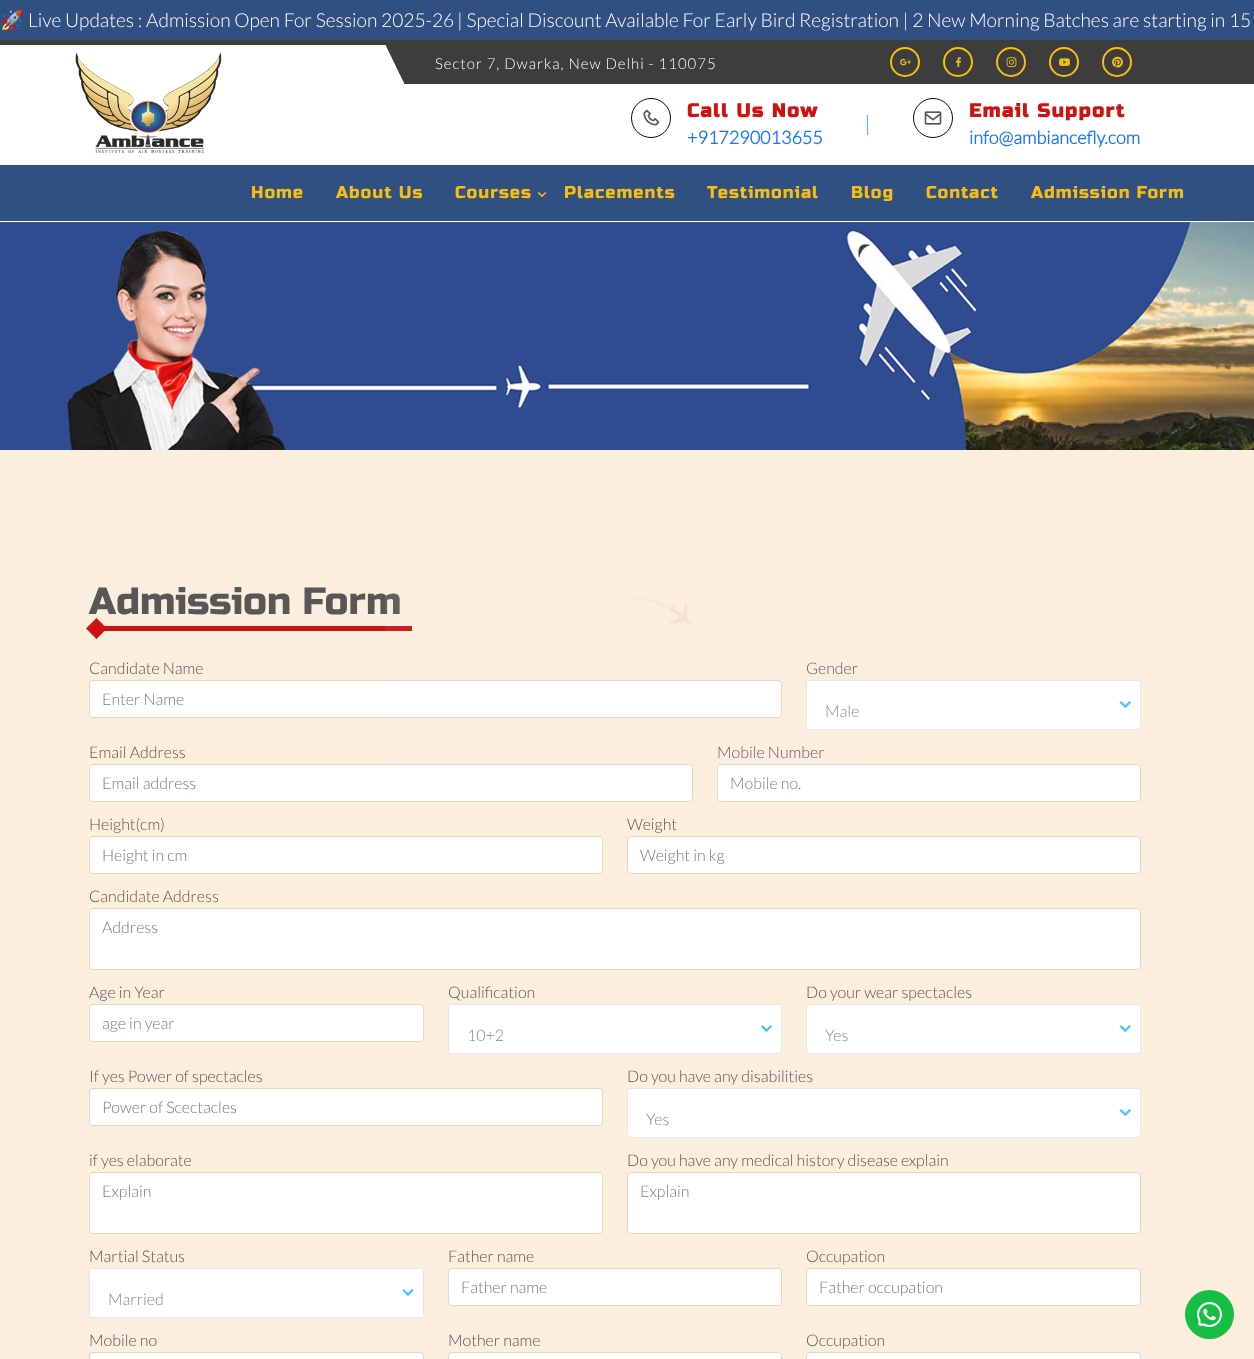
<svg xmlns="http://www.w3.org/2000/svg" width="1254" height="1359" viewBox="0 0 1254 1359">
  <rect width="100%" height="100%" fill="rgb(251,238,221)"/>
  <rect x="0" y="0" width="1254" height="40" fill="rgb(48,80,132)"/>
  <text x="0" y="27" font-family="Noto Color Emoji" font-size="19.2" fill="rgb(255,255,255)">🚀</text>
  <g font-family="Lato" font-size="19.2" font-weight="300" fill="rgb(255,255,255)">
    <text x="28" y="27">Live Updates : Admission Open For Session 2025-26</text>
    <text x="457" y="27">| Special Discount Available For Early Bird Registration | 2 New Morning Batches are starting in 15</text>
  </g>
  <rect x="0" y="84" width="1254" height="81" fill="rgb(255,255,255)"/>
  <rect x="0" y="40" width="1254" height="44" fill="rgb(61,61,61)"/>
  <rect x="0" y="45" width="386" height="39" fill="rgb(255,255,255)"/>
  <path d="M365.5 45H385.5L404.5 84H384.5Z" fill="rgb(255,255,255)"/>
  <text x="435" y="69" font-family="Lato" font-size="15" font-weight="300" letter-spacing="1" fill="rgb(255,255,255)">Sector 7, Dwarka, New Delhi - 110075</text>
  <circle cx="905" cy="62" r="14" fill="none" stroke="rgb(247,190,18)" stroke-width="2"/>
  <image x="900" y="58" width="11" height="8" href="pic1.png"/>
  <circle cx="958" cy="62" r="14" fill="none" stroke="rgb(247,190,18)" stroke-width="2"/>
  <image x="955" y="57" width="7" height="10" href="pic2.png"/>
  <circle cx="1011" cy="62" r="14" fill="none" stroke="rgb(247,190,18)" stroke-width="2"/>
  <image x="1006" y="57" width="11" height="11" href="pic3.png"/>
  <circle cx="1064" cy="62" r="14" fill="none" stroke="rgb(247,190,18)" stroke-width="2"/>
  <image x="1059" y="58" width="11" height="8" href="pic4.png"/>
  <circle cx="1117" cy="62" r="14" fill="none" stroke="rgb(247,190,18)" stroke-width="2"/>
  <image x="1112" y="56" width="11" height="12" href="pic5.png"/>
  <image x="75" y="52" width="147" height="101" href="pic6.png"/>
  <circle cx="651" cy="118" r="19.5" fill="none" stroke="rgb(13,13,13)"/>
  <image x="643" y="109" width="17" height="17" href="pic7.png"/>
  <text x="687" y="117" font-family="Russo One" font-size="19" font-weight="bold" letter-spacing="1.5" fill="rgb(206,18,18)">Call Us Now</text>
  <text x="687" y="144" font-family="Lato" font-size="18" font-weight="bold" fill="rgb(25,117,253)">+917290013655</text>
  <rect x="867" y="115" width="1" height="20" fill="rgb(61,192,255)"/>
  <circle cx="933" cy="118" r="19.5" fill="none" stroke="rgb(13,13,13)"/>
  <image x="924" y="111" width="18" height="14" href="pic8.png"/>
  <text x="969" y="117" font-family="Russo One" font-size="19" font-weight="bold" letter-spacing="1.5" fill="rgb(206,18,18)">Email Support</text>
  <text x="969" y="144" font-family="Lato" font-size="18" font-weight="bold" fill="rgb(25,117,253)">info@ambiancefly.com</text>
  <rect x="0" y="165" width="1254" height="56" fill="rgb(48,80,132)"/>
  <rect x="0" y="221" width="1254" height="1" fill="rgb(255,255,255)"/>
  <g font-family="Russo One" font-size="17" letter-spacing="1" fill="rgb(247,190,18)">
    <text x="251" y="198">Home</text>
    <text x="336" y="198">About Us</text>
    <text x="455" y="198">Courses</text>
  </g>
  <image x="537" y="192" width="10" height="6" href="pic9.png"/>
  <g font-family="Russo One" font-size="17" letter-spacing="1" fill="rgb(247,190,18)">
    <text x="564" y="198">Placements</text>
    <text x="707" y="198">Testimonial</text>
    <text x="851" y="198">Blog</text>
    <text x="926" y="198">Contact</text>
    <text x="1031" y="198">Admission Form</text>
  </g>
  <image x="0" y="222" width="1254" height="228" href="pic10.png"/>
  <text x="89" y="614" font-family="Russo One" font-size="38" fill="rgb(87,87,87)">Admission Form</text>
  <rect x="104" y="626" width="308" height="5" fill="rgb(206,18,18)"/>
  <path d="M96.5 618L107 628.5L96.5 639L86 628.5Z" fill="rgb(206,18,18)"/>
  <text x="89" y="674" font-family="Lato" font-size="16" font-weight="300" fill="rgb(87,87,87)">Candidate Name</text>
  <rect x="89.5" y="680.5" width="692" height="37" rx="3.5" fill="rgb(255,255,255)" stroke="rgb(227,215,200)"/>
  <text x="102" y="705" font-family="Lato" font-size="16" font-weight="300" fill="rgb(115,124,132)">Enter Name</text>
  <text x="806" y="674" font-family="Lato" font-size="16" font-weight="300" fill="rgb(87,87,87)">Gender</text>
  <rect x="806" y="680" width="335" height="50" rx="3" fill="rgb(255,255,255)"/>
  <rect x="806.5" y="680.5" width="334" height="49" rx="2.5" fill="none" stroke="rgba(13,13,13,0.1)"/>
  <text x="825" y="717" font-family="Lato" font-size="16" font-weight="300" fill="rgb(137,137,137)">Male</text>
  <path d="M1129.5 701L1131 702.5L1125.5 708L1124 706.5Z" fill="rgb(61,192,255)"/>
  <path d="M1121 701L1126.5 706.5L1125.5 708L1119.5 702.5Z" fill="rgb(61,192,255)"/>
  <text x="89" y="758" font-family="Lato" font-size="16" font-weight="300" fill="rgb(87,87,87)">Email Address</text>
  <rect x="89.5" y="764.5" width="603" height="37" rx="3.5" fill="rgb(255,255,255)" stroke="rgb(227,215,200)"/>
  <text x="102" y="789" font-family="Lato" font-size="16" font-weight="300" fill="rgb(115,124,132)">Email address</text>
  <text x="717" y="758" font-family="Lato" font-size="16" font-weight="300" fill="rgb(87,87,87)">Mobile Number</text>
  <rect x="717.5" y="764.5" width="423" height="37" rx="3.5" fill="rgb(255,255,255)" stroke="rgb(227,215,200)"/>
  <text x="730" y="789" font-family="Lato" font-size="16" font-weight="300" fill="rgb(115,124,132)">Mobile no.</text>
  <text x="89" y="830" font-family="Lato" font-size="16" font-weight="300" fill="rgb(87,87,87)">Height(cm)</text>
  <rect x="89.5" y="836.5" width="513" height="37" rx="3.5" fill="rgb(255,255,255)" stroke="rgb(227,215,200)"/>
  <text x="102" y="861" font-family="Lato" font-size="16" font-weight="300" fill="rgb(115,124,132)">Height in cm</text>
  <text x="627" y="830" font-family="Lato" font-size="16" font-weight="300" fill="rgb(87,87,87)">Weight</text>
  <rect x="627.5" y="836.5" width="513" height="37" rx="3.5" fill="rgb(255,255,255)" stroke="rgb(227,215,200)"/>
  <text x="640" y="861" font-family="Lato" font-size="16" font-weight="300" fill="rgb(115,124,132)">Weight in kg</text>
  <text x="89" y="902" font-family="Lato" font-size="16" font-weight="300" fill="rgb(87,87,87)">Candidate Address</text>
  <rect x="89.5" y="908.5" width="1051" height="61" rx="3.5" fill="rgb(255,255,255)" stroke="rgb(227,215,200)"/>
  <text x="102" y="933" font-family="Lato" font-size="16" font-weight="300" fill="rgb(115,124,132)">Address</text>
  <text x="89" y="998" font-family="Lato" font-size="16" font-weight="300" fill="rgb(87,87,87)">Age in Year</text>
  <rect x="89.5" y="1004.5" width="334" height="37" rx="3.5" fill="rgb(255,255,255)" stroke="rgb(227,215,200)"/>
  <text x="102" y="1029" font-family="Lato" font-size="16" font-weight="300" fill="rgb(115,124,132)">age in year</text>
  <text x="448" y="998" font-family="Lato" font-size="16" font-weight="300" fill="rgb(87,87,87)">Qualification</text>
  <rect x="448" y="1004" width="334" height="50" rx="3" fill="rgb(255,255,255)"/>
  <rect x="448.5" y="1004.5" width="333" height="49" rx="2.5" fill="none" stroke="rgba(13,13,13,0.1)"/>
  <text x="467" y="1041" font-family="Lato" font-size="16" font-weight="300" fill="rgb(137,137,137)">10+2</text>
  <path d="M771 1025L772 1026.5L766.5 1032L765 1030.5Z" fill="rgb(61,192,255)"/>
  <path d="M762.5 1025L768 1030.5L766.5 1032L761 1026.5Z" fill="rgb(61,192,255)"/>
  <text x="806" y="998" font-family="Lato" font-size="16" font-weight="300" fill="rgb(87,87,87)">Do your wear spectacles</text>
  <rect x="806" y="1004" width="335" height="50" rx="3" fill="rgb(255,255,255)"/>
  <rect x="806.5" y="1004.5" width="334" height="49" rx="2.5" fill="none" stroke="rgba(13,13,13,0.1)"/>
  <text x="825" y="1041" font-family="Lato" font-size="16" font-weight="300" fill="rgb(137,137,137)">Yes</text>
  <path d="M1129.5 1025L1131 1026.5L1125 1032L1124 1030.5Z" fill="rgb(61,192,255)"/>
  <path d="M1121 1025L1126.5 1030.5L1125 1032L1119.5 1026.5Z" fill="rgb(61,192,255)"/>
  <text x="89" y="1082" font-family="Lato" font-size="16" font-weight="300" fill="rgb(87,87,87)">If yes Power of spectacles</text>
  <rect x="89.5" y="1088.5" width="513" height="37" rx="3.5" fill="rgb(255,255,255)" stroke="rgb(227,215,200)"/>
  <text x="102" y="1113" font-family="Lato" font-size="16" font-weight="300" fill="rgb(115,124,132)">Power of Scectacles</text>
  <text x="627" y="1082" font-family="Lato" font-size="16" font-weight="300" fill="rgb(87,87,87)">Do you have any disabilities</text>
  <rect x="627" y="1088" width="514" height="50" rx="3" fill="rgb(255,255,255)"/>
  <rect x="627.5" y="1088.5" width="513" height="49" rx="2.5" fill="none" stroke="rgba(13,13,13,0.1)"/>
  <text x="646" y="1125" font-family="Lato" font-size="16" font-weight="300" fill="rgb(137,137,137)">Yes</text>
  <path d="M1129.5 1109L1131 1110.5L1125.5 1116L1124 1114.5Z" fill="rgb(61,192,255)"/>
  <path d="M1121 1109L1126.5 1114.5L1125.5 1116L1119.5 1110.5Z" fill="rgb(61,192,255)"/>
  <text x="89" y="1166" font-family="Lato" font-size="16" font-weight="300" fill="rgb(87,87,87)">if yes elaborate</text>
  <rect x="89.5" y="1172.5" width="513" height="61" rx="3.5" fill="rgb(255,255,255)" stroke="rgb(227,215,200)"/>
  <text x="102" y="1197" font-family="Lato" font-size="16" font-weight="300" fill="rgb(115,124,132)">Explain</text>
  <text x="627" y="1166" font-family="Lato" font-size="16" font-weight="300" fill="rgb(87,87,87)">Do you have any medical history disease explain</text>
  <rect x="627.5" y="1172.5" width="513" height="61" rx="3.5" fill="rgb(255,255,255)" stroke="rgb(227,215,200)"/>
  <text x="640" y="1197" font-family="Lato" font-size="16" font-weight="300" fill="rgb(115,124,132)">Explain</text>
  <text x="89" y="1262" font-family="Lato" font-size="16" font-weight="300" fill="rgb(87,87,87)">Martial Status</text>
  <rect x="89" y="1268" width="335" height="50" rx="3" fill="rgb(255,255,255)"/>
  <rect x="89.5" y="1268.5" width="334" height="49" rx="2.5" fill="none" stroke="rgba(13,13,13,0.1)"/>
  <text x="108" y="1305" font-family="Lato" font-size="16" font-weight="300" fill="rgb(137,137,137)">Married</text>
  <path d="M412 1289L413.5 1290.5L408 1296L406.5 1294.5Z" fill="rgb(61,192,255)"/>
  <path d="M403.5 1289L409.5 1294.5L408 1296L402.5 1290.5Z" fill="rgb(61,192,255)"/>
  <text x="448" y="1262" font-family="Lato" font-size="16" font-weight="300" fill="rgb(87,87,87)">Father name</text>
  <rect x="448.5" y="1268.5" width="333" height="37" rx="3.5" fill="rgb(255,255,255)" stroke="rgb(227,215,200)"/>
  <text x="461" y="1293" font-family="Lato" font-size="16" font-weight="300" fill="rgb(115,124,132)">Father name</text>
  <text x="806" y="1262" font-family="Lato" font-size="16" font-weight="300" fill="rgb(87,87,87)">Occupation</text>
  <rect x="806.5" y="1268.5" width="334" height="37" rx="3.5" fill="rgb(255,255,255)" stroke="rgb(227,215,200)"/>
  <text x="819" y="1293" font-family="Lato" font-size="16" font-weight="300" fill="rgb(115,124,132)">Father occupation</text>
  <text x="89" y="1346" font-family="Lato" font-size="16" font-weight="300" fill="rgb(87,87,87)">Mobile no</text>
  <rect x="90" y="1353" width="333" height="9" rx="3" fill="rgb(255,255,255)"/>
  <rect x="89.5" y="1352.5" width="334" height="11" rx="3.5" fill="none" stroke="rgb(227,215,200)"/>
  <text x="448" y="1346" font-family="Lato" font-size="16" font-weight="300" fill="rgb(87,87,87)">Mother name</text>
  <rect x="449" y="1353" width="332" height="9" rx="3" fill="rgb(255,255,255)"/>
  <rect x="448.5" y="1352.5" width="333" height="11" rx="3.5" fill="none" stroke="rgb(227,215,200)"/>
  <text x="806" y="1346" font-family="Lato" font-size="16" font-weight="300" fill="rgb(87,87,87)">Occupation</text>
  <rect x="807" y="1353" width="333" height="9" rx="3" fill="rgb(255,255,255)"/>
  <rect x="806.5" y="1352.5" width="334" height="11" rx="3.5" fill="none" stroke="rgb(227,215,200)"/>
  <image x="385" y="593" width="474" height="194" href="pic11.png"/>
  <circle cx="1209.5" cy="1314.5" r="24.5" fill="rgb(22,190,69)"/>
  <image x="1197" y="1302" width="25" height="25" href="pic12.png"/>
</svg>
